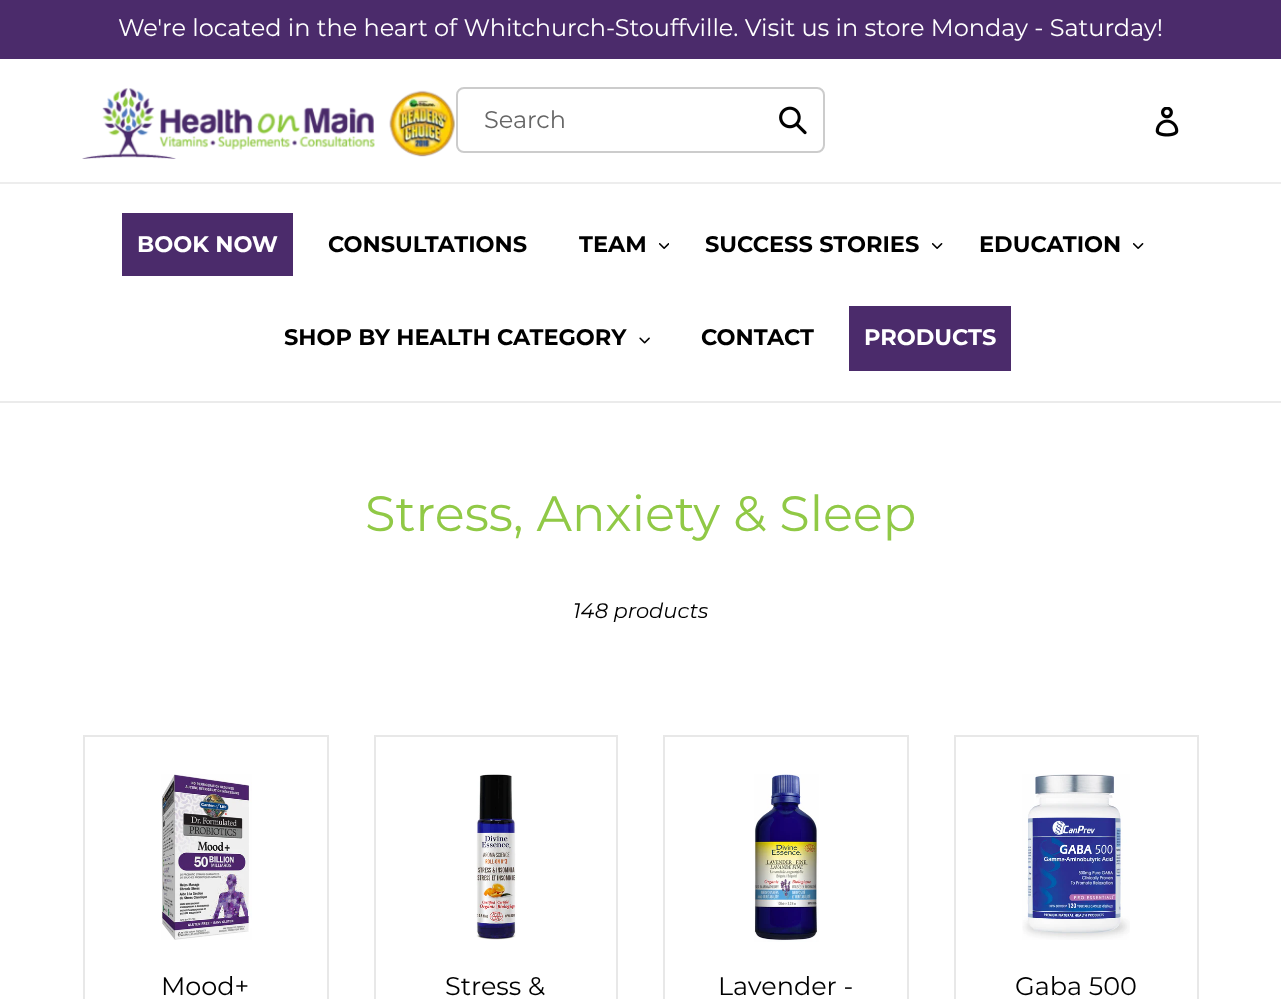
<svg xmlns="http://www.w3.org/2000/svg" width="1281" height="999" viewBox="0 0 1281 999">
  <rect width="100%" height="100%" fill="rgb(255,255,255)"/>
  <rect x="0" y="0" width="1281" height="59" fill="rgb(75,43,107)"/>
  <text x="118" y="36" font-family="Montserrat" font-size="24" fill="rgb(255,255,255)">We're located in the heart of Whitchurch-Stouffville. Visit us in store Monday - Saturday!</text>
  <image x="82" y="88" width="373" height="71" href="pic1.png"/>
  <rect x="457" y="88" width="367" height="64" rx="7" fill="none" stroke="rgb(204,204,204)" stroke-width="2"/>
  <text x="484" y="128" font-family="Montserrat" font-size="24" fill="rgb(102,102,102)">Search</text>
  <image x="779" y="106" width="28" height="29" href="pic2.png"/>
  <image x="1155" y="107" width="24" height="30" href="pic3.png"/>
  <rect x="0" y="182" width="1281" height="2" fill="rgb(237,237,237)"/>
  <rect x="0" y="401" width="1281" height="2" fill="rgb(235,235,235)"/>
  <rect x="122" y="213" width="171" height="63" fill="rgb(75,43,107)"/>
  <text x="137" y="252" font-family="Montserrat" font-size="22.5" font-weight="bold" fill="rgb(255,255,255)">BOOK NOW</text>
  <g font-family="Montserrat" font-size="22.5" font-weight="bold" fill="rgb(0,0,0)">
    <text x="328" y="252">CONSULTATIONS</text>
    <text x="579" y="252">TEAM</text>
  </g>
  <image x="659" y="243" width="10" height="6" href="pic4.png"/>
  <text x="705" y="252" font-family="Montserrat" font-size="22.5" font-weight="bold" fill="rgb(0,0,0)">SUCCESS STORIES</text>
  <image x="932" y="243" width="11" height="6" href="pic5.png"/>
  <text x="979" y="252" font-family="Montserrat" font-size="22.5" font-weight="bold" fill="rgb(0,0,0)">EDUCATION</text>
  <image x="1133" y="243" width="11" height="6" href="pic5.png"/>
  <text x="284" y="345" font-family="Montserrat" font-size="22.5" font-weight="bold" fill="rgb(0,0,0)">SHOP BY HEALTH CATEGORY</text>
  <image x="639" y="337" width="11" height="7" href="pic6.png"/>
  <text x="701" y="345" font-family="Montserrat" font-size="22.5" font-weight="bold" fill="rgb(0,0,0)">CONTACT</text>
  <rect x="849" y="306" width="162" height="65" fill="rgb(75,43,107)"/>
  <text x="864" y="345" font-family="Montserrat" font-size="22.5" font-weight="bold" fill="rgb(255,255,255)">PRODUCTS</text>
  <text x="365" y="531" font-family="Montserrat" font-size="49.5" fill="rgb(144,201,70)">Stress, Anxiety &amp; Sleep</text>
  <text x="573" y="618" font-family="Montserrat" font-size="21" font-style="italic" fill="rgb(0,0,0)">148 products</text>
  <rect x="84" y="736" width="244" height="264" fill="none" stroke="rgb(232,232,232)" stroke-width="2"/>
  <image x="161" y="774" width="91" height="166" href="pic7.png"/>
  <text x="161" y="995" font-family="Montserrat" font-size="25.5" fill="rgb(0,0,0)">Mood+</text>
  <rect x="375" y="736" width="242" height="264" fill="none" stroke="rgb(232,232,232)" stroke-width="2"/>
  <image x="476" y="774" width="41" height="166" href="pic8.png"/>
  <text x="445" y="995" font-family="Montserrat" font-size="25.5" fill="rgb(0,0,0)">Stress &amp;</text>
  <rect x="664" y="736" width="244" height="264" fill="none" stroke="rgb(232,232,232)" stroke-width="2"/>
  <image x="754" y="774" width="65" height="168" href="pic9.png"/>
  <text x="718" y="995" font-family="Montserrat" font-size="25.5" fill="rgb(0,0,0)">Lavender -</text>
  <rect x="955" y="736" width="243" height="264" fill="none" stroke="rgb(232,232,232)" stroke-width="2"/>
  <image x="1022" y="774" width="108" height="166" href="pic10.png"/>
  <text x="1015" y="995" font-family="Montserrat" font-size="25.5" fill="rgb(0,0,0)">Gaba 500</text>
</svg>
